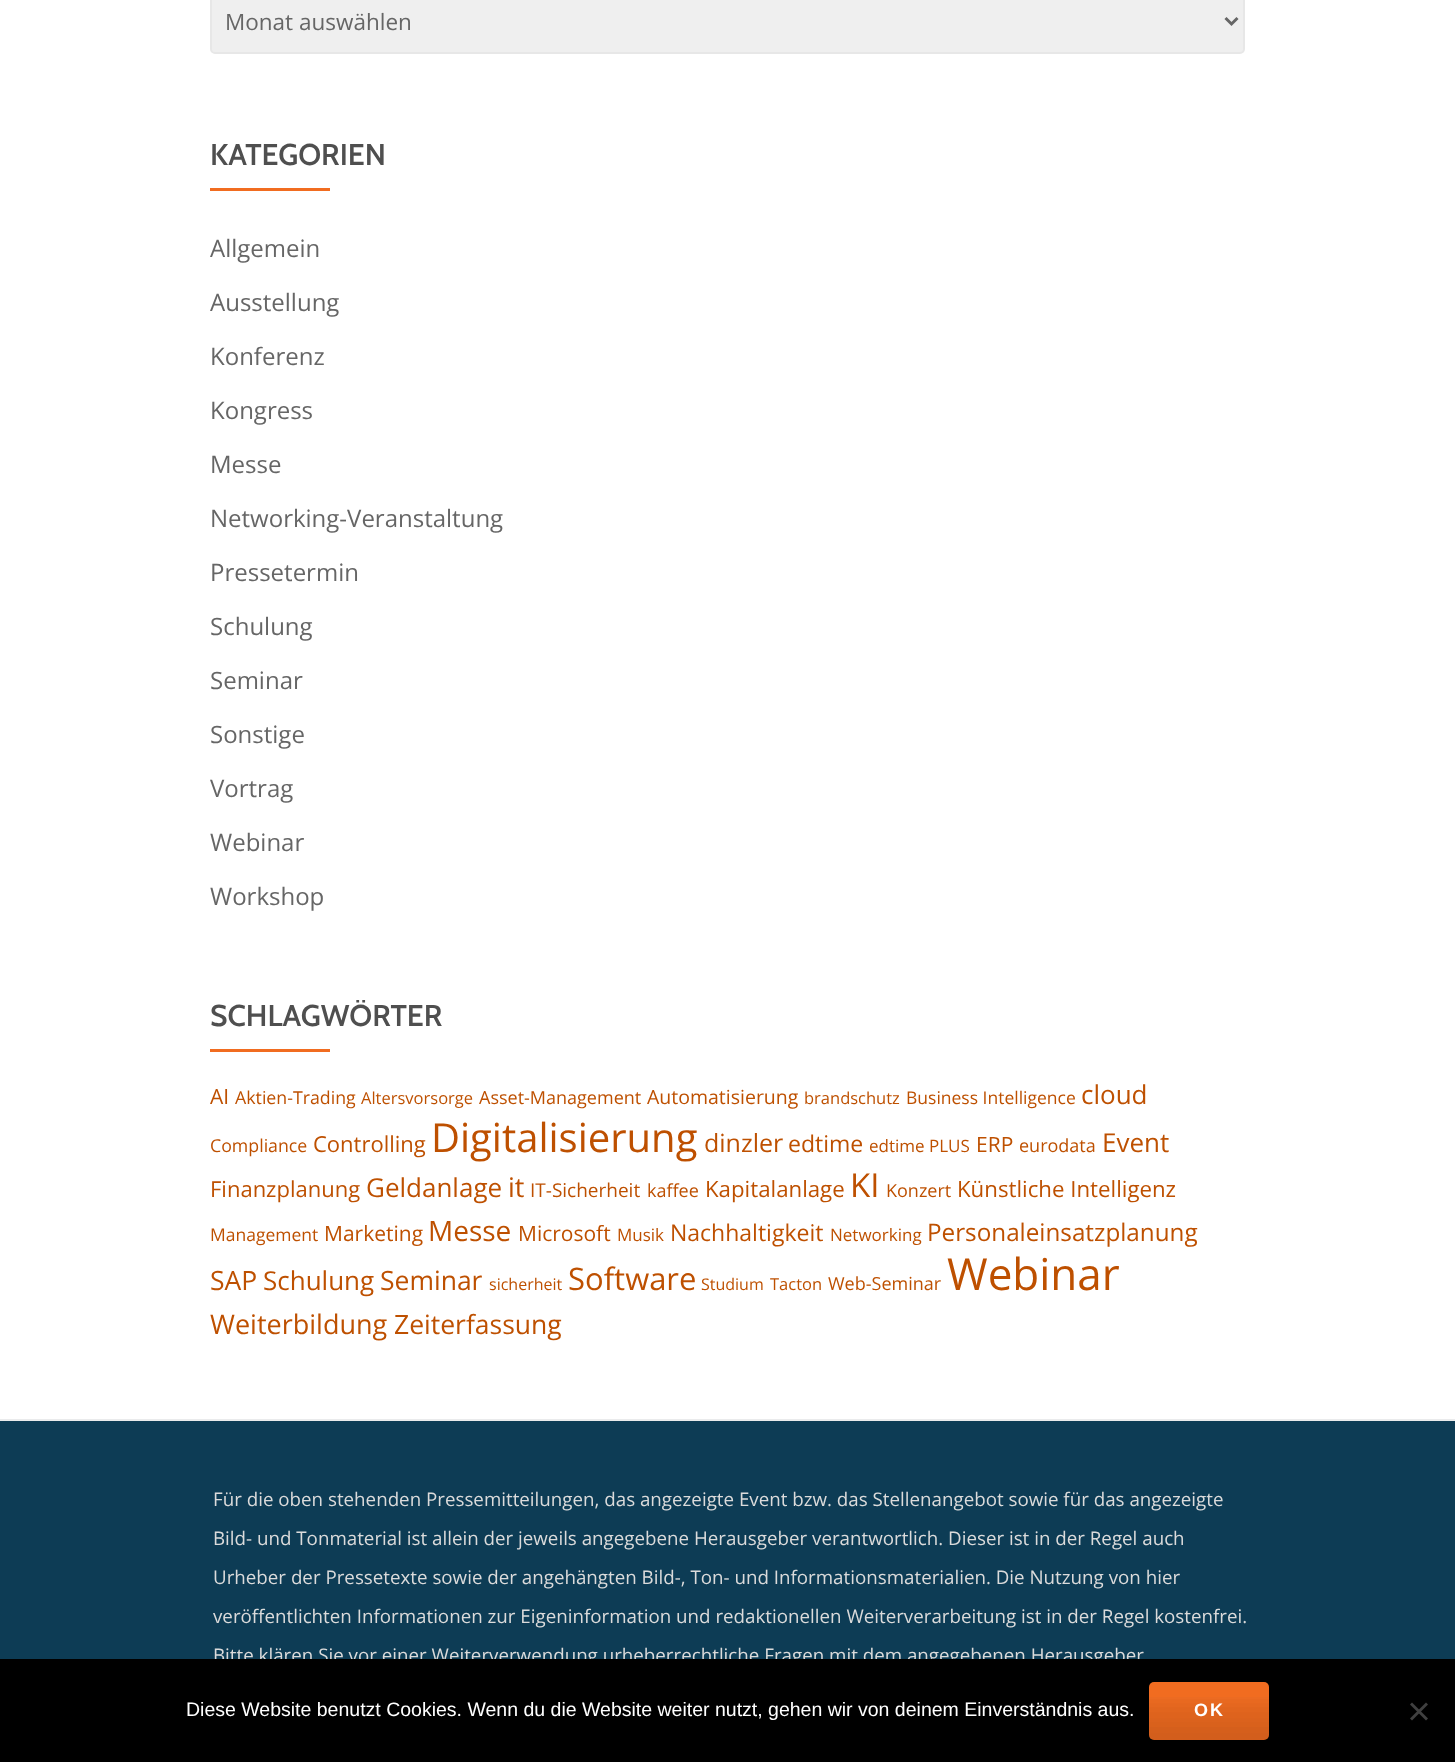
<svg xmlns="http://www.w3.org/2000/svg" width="1455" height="1762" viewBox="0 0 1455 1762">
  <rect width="100%" height="100%" fill="rgb(255,255,255)"/>
  <rect x="211" y="-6" width="1033" height="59" rx="4" fill="rgb(239,239,239)" stroke="rgb(231,231,231)" stroke-width="2"/>
  <path d="M1225.5 18L1231.5 24L1237.5 18" fill="none" stroke="rgb(102,102,102)" stroke-width="3"/>
  <text x="225" y="30" font-family="Open Sans" font-size="22.5" fill="rgb(102,102,102)">Monat auswählen</text>
  <text x="210" y="165" font-family="Cabin" font-size="30" font-weight="600" fill="rgb(79,79,79)">KATEGORIEN</text>
  <rect x="210" y="188" width="120" height="3" fill="rgb(241,108,32)"/>
  <g font-family="Open Sans" font-size="24" fill="rgb(102,102,102)">
    <text x="210" y="257">Allgemein</text>
    <text x="210" y="311">Ausstellung</text>
    <text x="210" y="365">Konferenz</text>
    <text x="210" y="419">Kongress</text>
    <text x="210" y="473">Messe</text>
    <text x="210" y="527">Networking-Veranstaltung</text>
    <text x="210" y="581">Pressetermin</text>
    <text x="210" y="635">Schulung</text>
    <text x="210" y="689">Seminar</text>
    <text x="210" y="743">Sonstige</text>
    <text x="210" y="797">Vortrag</text>
    <text x="210" y="851">Webinar</text>
    <text x="210" y="905">Workshop</text>
  </g>
  <text x="210" y="1026" font-family="Cabin" font-size="30" font-weight="600" fill="rgb(79,79,79)">SCHLAGWÖRTER</text>
  <rect x="210" y="1049" width="120" height="3" fill="rgb(241,108,32)"/>
  <text x="210" y="1104" font-family="Open Sans" font-size="21" fill="rgb(190,80,0)">AI</text>
  <text x="235" y="1104" font-family="Open Sans" font-size="17.75" fill="rgb(190,80,0)">Aktien-Trading</text>
  <text x="361" y="1104" font-family="Open Sans" font-size="16.5" fill="rgb(190,80,0)">Altersvorsorge</text>
  <text x="479" y="1104" font-family="Open Sans" font-size="18" fill="rgb(190,80,0)">Asset-Management</text>
  <text x="647" y="1104" font-family="Open Sans" font-size="19.5" fill="rgb(190,80,0)">Automatisierung</text>
  <text x="804" y="1104" font-family="Open Sans" font-size="16.5" fill="rgb(190,80,0)">brandschutz</text>
  <text x="906" y="1104" font-family="Open Sans" font-size="17.5" fill="rgb(190,80,0)">Business Intelligence</text>
  <text x="1081" y="1104" font-family="Open Sans" font-size="26" fill="rgb(190,80,0)">cloud</text>
  <text x="210" y="1152" font-family="Open Sans" font-size="17.75" fill="rgb(190,80,0)">Compliance</text>
  <text x="313" y="1152" font-family="Open Sans" font-size="22" fill="rgb(190,80,0)">Controlling</text>
  <text x="431" y="1152" font-family="Open Sans" font-size="40" fill="rgb(190,80,0)">Digitalisierung</text>
  <text x="704" y="1152" font-family="Open Sans" font-size="25" fill="rgb(190,80,0)">dinzler</text>
  <text x="788" y="1152" font-family="Open Sans" font-size="23" fill="rgb(190,80,0)">edtime</text>
  <text x="869" y="1152" font-family="Open Sans" font-size="17" fill="rgb(190,80,0)">edtime PLUS</text>
  <text x="976" y="1152" font-family="Open Sans" font-size="21" fill="rgb(190,80,0)">ERP</text>
  <text x="1019" y="1152" font-family="Open Sans" font-size="18" fill="rgb(190,80,0)">eurodata</text>
  <text x="1102" y="1152" font-family="Open Sans" font-size="26" fill="rgb(190,80,0)">Event</text>
  <text x="210" y="1197" font-family="Open Sans" font-size="22" fill="rgb(190,80,0)">Finanzplanung</text>
  <text x="366" y="1197" font-family="Open Sans" font-size="26" fill="rgb(190,80,0)">Geldanlage</text>
  <text x="508" y="1197" font-family="Open Sans" font-size="27" fill="rgb(190,80,0)">it</text>
  <text x="530" y="1197" font-family="Open Sans" font-size="19" fill="rgb(190,80,0)">IT-Sicherheit</text>
  <text x="647" y="1197" font-family="Open Sans" font-size="18" fill="rgb(190,80,0)">kaffee</text>
  <text x="705" y="1197" font-family="Open Sans" font-size="22.25" fill="rgb(190,80,0)">Kapitalanlage</text>
  <text x="850" y="1197" font-family="Open Sans" font-size="33" fill="rgb(190,80,0)">KI</text>
  <text x="886" y="1197" font-family="Open Sans" font-size="18" fill="rgb(190,80,0)">Konzert</text>
  <text x="957" y="1197" font-family="Open Sans" font-size="22.25" fill="rgb(190,80,0)">Künstliche Intelligenz</text>
  <text x="210" y="1241" font-family="Open Sans" font-size="17.5" fill="rgb(190,80,0)">Management</text>
  <text x="324" y="1241" font-family="Open Sans" font-size="21" fill="rgb(190,80,0)">Marketing</text>
  <text x="428" y="1241" font-family="Open Sans" font-size="28" fill="rgb(190,80,0)">Messe</text>
  <text x="518" y="1241" font-family="Open Sans" font-size="21" fill="rgb(190,80,0)">Microsoft</text>
  <text x="617" y="1241" font-family="Open Sans" font-size="17" fill="rgb(190,80,0)">Musik</text>
  <text x="670" y="1241" font-family="Open Sans" font-size="23" fill="rgb(190,80,0)">Nachhaltigkeit</text>
  <text x="830" y="1241" font-family="Open Sans" font-size="17" fill="rgb(190,80,0)">Networking</text>
  <text x="927" y="1241" font-family="Open Sans" font-size="24.25" fill="rgb(190,80,0)">Personaleinsatzplanung</text>
  <text x="210" y="1290" font-family="Open Sans" font-size="26.5" fill="rgb(190,80,0)">SAP</text>
  <text x="263" y="1290" font-family="Open Sans" font-size="26" fill="rgb(190,80,0)">Schulung</text>
  <text x="380" y="1290" font-family="Open Sans" font-size="26.5" fill="rgb(190,80,0)">Seminar</text>
  <text x="489" y="1290" font-family="Open Sans" font-size="16" fill="rgb(190,80,0)">sicherheit</text>
  <text x="568" y="1290" font-family="Open Sans" font-size="31" fill="rgb(190,80,0)">Software</text>
  <text x="701" y="1290" font-family="Open Sans" font-size="16" fill="rgb(190,80,0)">Studium</text>
  <text x="770" y="1290" font-family="Open Sans" font-size="16.5" fill="rgb(190,80,0)">Tacton</text>
  <text x="828" y="1290" font-family="Open Sans" font-size="18" fill="rgb(190,80,0)">Web-Seminar</text>
  <text x="947" y="1290" font-family="Open Sans" font-size="44" fill="rgb(190,80,0)">Webinar</text>
  <text x="210" y="1334" font-family="Open Sans" font-size="27" fill="rgb(190,80,0)">Weiterbildung</text>
  <text x="394" y="1334" font-family="Open Sans" font-size="26.5" fill="rgb(190,80,0)">Zeiterfassung</text>
  <rect x="0" y="1421" width="1455" height="238" fill="rgb(13,60,85)"/>
  <rect x="0" y="1419" width="1455" height="2" fill="rgb(234,235,236)"/>
  <g font-family="Open Sans" font-size="18.75" fill="rgb(219,219,219)">
    <text x="213" y="1506">Für die oben stehenden Pressemitteilungen, das angezeigte Event bzw. das Stellenangebot sowie für das angezeigte</text>
    <text x="213" y="1545">Bild- und Tonmaterial ist allein der jeweils angegebene Herausgeber verantwortlich. Dieser ist in der Regel auch</text>
    <text x="213" y="1584">Urheber der Pressetexte sowie der angehängten Bild-, Ton- und Informationsmaterialien. Die Nutzung von hier</text>
    <text x="213" y="1623">veröffentlichten Informationen zur Eigeninformation und redaktionellen Weiterverarbeitung ist in der Regel kostenfrei.</text>
    <text x="213" y="1662">Bitte klären Sie vor einer Weiterverwendung urheberrechtliche Fragen mit dem angegebenen Herausgeber</text>
  </g>
  <rect x="0" y="1659" width="1455" height="103" fill="rgb(0,0,0)"/>
  <text x="186" y="1716" font-family="Liberation Sans" font-size="19.5" fill="rgb(255,255,255)">Diese Website benutzt Cookies. Wenn du die Website weiter nutzt, gehen wir von deinem Einverständnis aus.</text>
  <rect x="1149" y="1682" width="120" height="58" rx="5" fill="rgb(241,108,32)"/>
  <image x="1149" y="1697" width="120" height="43" href="pic1.png"/>
  <text x="1194" y="1716" font-family="Liberation Sans" font-size="18" font-weight="bold" letter-spacing="2" fill="rgb(255,255,255)">OK</text>
  <path d="M1426 1702.5L1428 1704.5L1412 1720.5L1410 1718.5Z" fill="rgb(64,64,64)"/>
  <path d="M1410 1704.5L1412 1702.5L1428 1718.5L1426 1720.5Z" fill="rgb(64,64,64)"/>
</svg>
